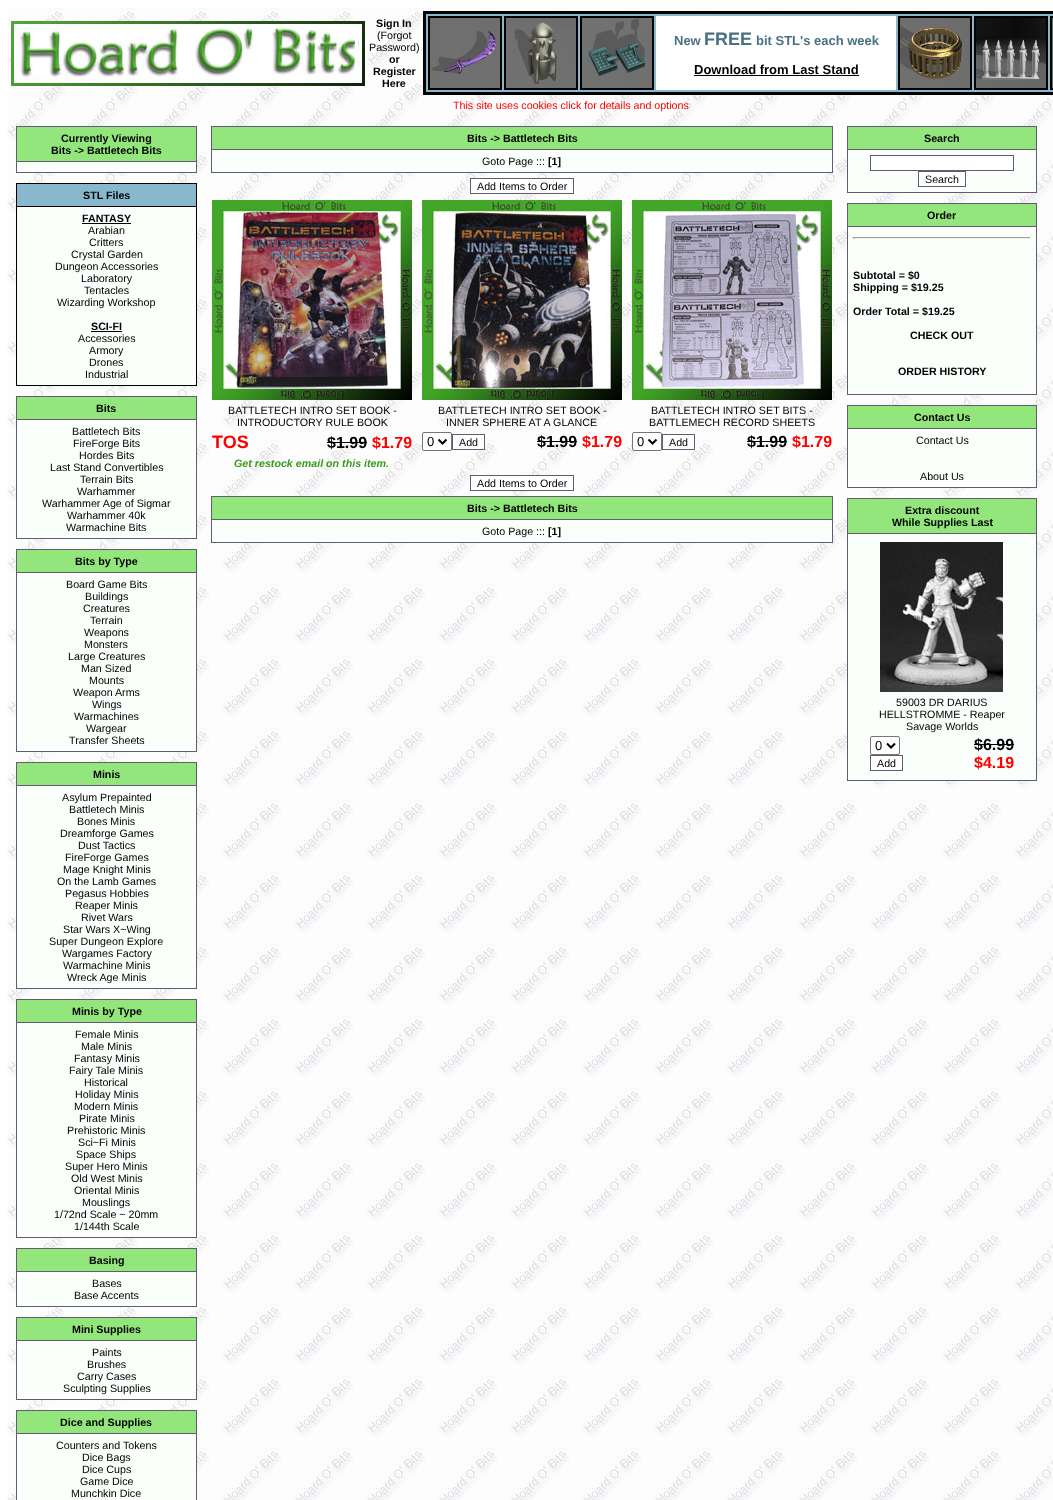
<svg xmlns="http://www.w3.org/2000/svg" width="1053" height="1500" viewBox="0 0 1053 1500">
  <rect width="100%" height="100%" fill="rgb(255,255,255)"/>
  <image x="7" y="8" width="1046" height="1492" href="pic1.png"/>
  <image x="11" y="21" width="354" height="65" href="pic2.png"/>
  <text x="376" y="27" font-family="Liberation Sans" font-size="10.7" font-weight="bold" fill="rgb(0,0,0)">Sign In</text>
  <g font-family="Liberation Sans" font-size="10.7" fill="rgb(0,0,0)">
    <text x="377" y="39">(Forgot</text>
    <text x="369" y="51">Password)</text>
  </g>
  <g font-family="Liberation Sans" font-size="10.7" font-weight="bold" fill="rgb(0,0,0)">
    <text x="389" y="63">or</text>
    <text x="373" y="75">Register</text>
    <text x="382" y="87">Here</text>
  </g>
  <rect x="423" y="11" width="630" height="84" fill="rgb(0,0,0)"/>
  <rect x="426" y="14" width="627" height="78" fill="rgb(136,184,205)"/>
  <rect x="428" y="16" width="74" height="74" fill="rgb(0,0,0)"/>
  <image x="430" y="18" width="70" height="70" href="pic3.png"/>
  <rect x="504" y="16" width="74" height="74" fill="rgb(0,0,0)"/>
  <image x="506" y="18" width="70" height="70" href="pic4.png"/>
  <rect x="580" y="16" width="74" height="74" fill="rgb(0,0,0)"/>
  <image x="582" y="18" width="70" height="70" href="pic5.png"/>
  <rect x="656" y="16" width="240" height="74" fill="rgb(255,255,255)"/>
  <text x="674" y="45" font-family="Liberation Sans" font-size="13" font-weight="bold" fill="rgb(72,113,131)">New</text>
  <text x="704" y="45" font-family="Liberation Sans" font-size="18" font-weight="bold" fill="rgb(72,113,131)">FREE</text>
  <text x="756" y="45" font-family="Liberation Sans" font-size="13" font-weight="bold" fill="rgb(72,113,131)">bit STL's each week</text>
  <text x="694" y="74" font-family="Liberation Sans" font-size="13" font-weight="bold" fill="rgb(0,0,0)">Download from Last Stand</text>
  <rect x="694" y="75" width="165" height="1" fill="rgb(0,0,0)"/>
  <rect x="898" y="16" width="74" height="74" fill="rgb(0,0,0)"/>
  <image x="900" y="18" width="70" height="70" href="pic6.png"/>
  <rect x="974" y="16" width="74" height="74" fill="rgb(0,0,0)"/>
  <image x="976" y="18" width="70" height="70" href="pic7.png"/>
  <rect x="1050" y="16" width="3" height="74" fill="rgb(0,0,0)"/>
  <rect x="1052" y="18" width="1" height="70" fill="rgb(113,113,113)"/>
  <text x="453" y="109" font-family="Liberation Sans" font-size="10.7" fill="rgb(255,0,0)">This site uses cookies click for details and options</text>
  <rect x="16" y="126" width="181" height="47" fill="rgb(99,90,115)"/>
  <rect x="17" y="127" width="179" height="34" fill="rgb(146,230,123)"/>
  <g font-family="Liberation Sans" font-size="10.7" font-weight="bold" fill="rgb(0,0,0)">
    <text x="61" y="142">Currently Viewing</text>
    <text x="51" y="154">Bits -&gt; Battletech Bits</text>
  </g>
  <rect x="17" y="162" width="179" height="10" fill="rgb(251,255,251)"/>
  <rect x="16" y="183" width="181" height="203" fill="rgb(0,0,0)"/>
  <rect x="17" y="184" width="179" height="22" fill="rgb(136,184,205)"/>
  <text x="83" y="199" font-family="Liberation Sans" font-size="10.7" font-weight="bold" fill="rgb(0,0,0)">STL Files</text>
  <rect x="17" y="207" width="179" height="178" fill="rgb(251,255,251)"/>
  <text x="82" y="222" font-family="Liberation Sans" font-size="10.7" font-weight="bold" fill="rgb(0,0,0)">FANTASY</text>
  <rect x="82" y="223" width="49" height="1" fill="rgb(0,0,0)"/>
  <g font-family="Liberation Sans" font-size="10.7" fill="rgb(0,0,0)">
    <text x="88" y="234">Arabian</text>
    <text x="89" y="246">Critters</text>
    <text x="71" y="258">Crystal Garden</text>
    <text x="55" y="270">Dungeon Accessories</text>
    <text x="81" y="282">Laboratory</text>
    <text x="84" y="294">Tentacles</text>
    <text x="57" y="306">Wizarding Workshop</text>
  </g>
  <text x="91" y="330" font-family="Liberation Sans" font-size="10.7" font-weight="bold" fill="rgb(0,0,0)">SCI-FI</text>
  <rect x="91" y="331" width="31" height="1" fill="rgb(0,0,0)"/>
  <g font-family="Liberation Sans" font-size="10.7" fill="rgb(0,0,0)">
    <text x="78" y="342">Accessories</text>
    <text>
      <tspan x="89" y="354">Armory</tspan>
      <tspan x="89" y="366">Drones</tspan>
    </text>
    <text x="85" y="378">Industrial</text>
  </g>
  <rect x="16" y="396" width="181" height="143" fill="rgb(99,90,115)"/>
  <rect x="17" y="397" width="179" height="22" fill="rgb(146,230,123)"/>
  <text x="96" y="412" font-family="Liberation Sans" font-size="10.7" font-weight="bold" fill="rgb(0,0,0)">Bits</text>
  <rect x="17" y="420" width="179" height="118" fill="rgb(251,255,251)"/>
  <g font-family="Liberation Sans" font-size="10.7" fill="rgb(0,0,0)">
    <text x="72" y="435">Battletech Bits</text>
    <text x="73" y="447">FireForge Bits</text>
    <text x="79" y="459">Hordes Bits</text>
    <text x="50" y="471">Last Stand Convertibles</text>
    <text x="80" y="483">Terrain Bits</text>
    <text x="77" y="495">Warhammer</text>
    <text x="42" y="507">Warhammer Age of Sigmar</text>
    <text x="67" y="519">Warhammer 40k</text>
    <text x="66" y="531">Warmachine Bits</text>
  </g>
  <rect x="16" y="549" width="181" height="203" fill="rgb(99,90,115)"/>
  <rect x="17" y="550" width="179" height="22" fill="rgb(146,230,123)"/>
  <text x="75" y="565" font-family="Liberation Sans" font-size="10.7" font-weight="bold" fill="rgb(0,0,0)">Bits by Type</text>
  <rect x="17" y="573" width="179" height="178" fill="rgb(251,255,251)"/>
  <g font-family="Liberation Sans" font-size="10.7" fill="rgb(0,0,0)">
    <text x="66" y="588">Board Game Bits</text>
    <text x="85" y="600">Buildings</text>
    <text x="83" y="612">Creatures</text>
    <text x="90" y="624">Terrain</text>
    <text>
      <tspan x="84" y="636">Weapons</tspan>
      <tspan x="84" y="648">Monsters</tspan>
    </text>
    <text x="68" y="660">Large Creatures</text>
    <text x="81" y="672">Man Sized</text>
    <text x="89" y="684">Mounts</text>
    <text x="73" y="696">Weapon Arms</text>
    <text x="92" y="708">Wings</text>
    <text x="74" y="720">Warmachines</text>
    <text x="86" y="732">Wargear</text>
    <text x="69" y="744">Transfer Sheets</text>
  </g>
  <rect x="16" y="762" width="181" height="227" fill="rgb(99,90,115)"/>
  <rect x="17" y="763" width="179" height="22" fill="rgb(146,230,123)"/>
  <text x="93" y="778" font-family="Liberation Sans" font-size="10.7" font-weight="bold" fill="rgb(0,0,0)">Minis</text>
  <rect x="17" y="786" width="179" height="202" fill="rgb(251,255,251)"/>
  <g font-family="Liberation Sans" font-size="10.7" fill="rgb(0,0,0)">
    <text x="62" y="801">Asylum Prepainted</text>
    <text x="69" y="813">Battletech Minis</text>
    <text x="77" y="825">Bones Minis</text>
    <text x="60" y="837">Dreamforge Games</text>
    <text x="78" y="849">Dust Tactics</text>
    <text x="65" y="861">FireForge Games</text>
    <text x="63" y="873">Mage Knight Minis</text>
    <text x="57" y="885">On the Lamb Games</text>
    <text x="65" y="897">Pegasus Hobbies</text>
    <text x="75" y="909">Reaper Minis</text>
    <text x="81" y="921">Rivet Wars</text>
    <text x="63" y="933">Star Wars X~Wing</text>
    <text x="49" y="945">Super Dungeon Explore</text>
    <text x="62" y="957">Wargames Factory</text>
    <text x="63" y="969">Warmachine Minis</text>
    <text x="67" y="981">Wreck Age Minis</text>
  </g>
  <rect x="16" y="999" width="181" height="239" fill="rgb(99,90,115)"/>
  <rect x="17" y="1000" width="179" height="22" fill="rgb(146,230,123)"/>
  <text x="72" y="1015" font-family="Liberation Sans" font-size="10.7" font-weight="bold" fill="rgb(0,0,0)">Minis by Type</text>
  <rect x="17" y="1023" width="179" height="214" fill="rgb(251,255,251)"/>
  <g font-family="Liberation Sans" font-size="10.7" fill="rgb(0,0,0)">
    <text x="75" y="1038">Female Minis</text>
    <text x="81" y="1050">Male Minis</text>
    <text x="74" y="1062">Fantasy Minis</text>
    <text x="69" y="1074">Fairy Tale Minis</text>
    <text x="84" y="1086">Historical</text>
    <text x="75" y="1098">Holiday Minis</text>
    <text x="74" y="1110">Modern Minis</text>
    <text x="79" y="1122">Pirate Minis</text>
    <text x="67" y="1134">Prehistoric Minis</text>
    <text x="78" y="1146">Sci~Fi Minis</text>
    <text x="76" y="1158">Space Ships</text>
    <text x="65" y="1170">Super Hero Minis</text>
    <text x="71" y="1182">Old West Minis</text>
    <text x="74" y="1194">Oriental Minis</text>
    <text x="82" y="1206">Mouslings</text>
    <text x="54" y="1218">1/72nd Scale ~ 20mm</text>
    <text x="74" y="1230">1/144th Scale</text>
  </g>
  <rect x="16" y="1248" width="181" height="59" fill="rgb(99,90,115)"/>
  <rect x="17" y="1249" width="179" height="22" fill="rgb(146,230,123)"/>
  <text x="89" y="1264" font-family="Liberation Sans" font-size="10.7" font-weight="bold" fill="rgb(0,0,0)">Basing</text>
  <rect x="17" y="1272" width="179" height="34" fill="rgb(251,255,251)"/>
  <g font-family="Liberation Sans" font-size="10.7" fill="rgb(0,0,0)">
    <text x="92" y="1287">Bases</text>
    <text x="74" y="1299">Base Accents</text>
  </g>
  <rect x="16" y="1317" width="181" height="83" fill="rgb(99,90,115)"/>
  <rect x="17" y="1318" width="179" height="22" fill="rgb(146,230,123)"/>
  <text x="72" y="1333" font-family="Liberation Sans" font-size="10.7" font-weight="bold" fill="rgb(0,0,0)">Mini Supplies</text>
  <rect x="17" y="1341" width="179" height="58" fill="rgb(251,255,251)"/>
  <g font-family="Liberation Sans" font-size="10.7" fill="rgb(0,0,0)">
    <text x="92" y="1356">Paints</text>
    <text x="87" y="1368">Brushes</text>
    <text x="77" y="1380">Carry Cases</text>
    <text x="63" y="1392">Sculpting Supplies</text>
  </g>
  <rect x="16" y="1410" width="181" height="90" fill="rgb(99,90,115)"/>
  <rect x="17" y="1411" width="179" height="22" fill="rgb(146,230,123)"/>
  <text x="60" y="1426" font-family="Liberation Sans" font-size="10.7" font-weight="bold" fill="rgb(0,0,0)">Dice and Supplies</text>
  <rect x="17" y="1434" width="179" height="66" fill="rgb(251,255,251)"/>
  <g font-family="Liberation Sans" font-size="10.7" fill="rgb(0,0,0)">
    <text x="56" y="1449">Counters and Tokens</text>
    <text>
      <tspan x="82" y="1461">Dice Bags</tspan>
      <tspan x="82" y="1473">Dice Cups</tspan>
    </text>
    <text x="80" y="1485">Game Dice</text>
    <text x="71" y="1497">Munchkin Dice</text>
  </g>
  <rect x="211" y="126" width="622" height="47" fill="rgb(99,90,115)"/>
  <rect x="212" y="127" width="620" height="22" fill="rgb(146,230,123)"/>
  <text x="467" y="142" font-family="Liberation Sans" font-size="10.7" font-weight="bold" fill="rgb(0,0,0)">Bits -&gt; Battletech Bits</text>
  <rect x="212" y="150" width="620" height="22" fill="rgb(251,255,251)"/>
  <text x="482" y="165" font-family="Liberation Sans" font-size="10.7" fill="rgb(0,0,0)">Goto Page :::</text>
  <text x="548" y="165" font-family="Liberation Sans" font-size="10.7" font-weight="bold" fill="rgb(0,0,0)">[1]</text>
  <rect x="471" y="179" width="89" height="14" fill="rgb(255,255,255)"/>
  <rect x="470.5" y="178.5" width="103" height="15" fill="none" stroke="rgb(99,90,115)"/>
  <text x="477" y="190" font-family="Liberation Sans" font-size="10.7" fill="rgb(0,0,0)">Add Items to Order</text>
  <image x="212" y="200" width="200" height="200" href="pic8.png"/>
  <g font-family="Liberation Sans" font-size="10.7" fill="rgb(0,0,0)">
    <text x="228" y="414">BATTLETECH INTRO SET BOOK -</text>
    <text x="237" y="426">INTRODUCTORY RULE BOOK</text>
  </g>
  <text x="212" y="448" font-family="Liberation Sans" font-size="18" font-weight="bold" fill="rgb(255,0,0)">TOS</text>
  <text x="327" y="448" font-family="Liberation Sans" font-size="16" font-weight="bold" fill="rgb(0,0,0)">$1.99</text>
  <rect x="327" y="442" width="40" height="1" fill="rgb(0,0,0)"/>
  <text x="372" y="448" font-family="Liberation Sans" font-size="16" font-weight="bold" fill="rgb(255,0,0)">$1.79</text>
  <text x="234" y="467" font-family="Liberation Sans" font-size="10.7" font-weight="bold" font-style="italic" fill="rgb(57,154,29)">Get restock email on this item.</text>
  <image x="422" y="200" width="200" height="200" href="pic9.png"/>
  <g font-family="Liberation Sans" font-size="10.7" fill="rgb(0,0,0)">
    <text x="438" y="414">BATTLETECH INTRO SET BOOK -</text>
    <text x="446" y="426">INNER SPHERE AT A GLANCE</text>
  </g>
  <rect x="422.5" y="432.5" width="29" height="18" rx="1.5" fill="rgb(255,255,255)" stroke="rgb(118,118,118)"/>
  <path d="M438.5 439.5L442.5 443.5L446.5 439.5" fill="none" stroke="rgb(0,0,0)" stroke-width="2"/>
  <text x="427" y="446" font-family="Liberation Sans" font-size="13" fill="rgb(0,0,0)">0</text>
  <rect x="472" y="440" width="12" height="9" fill="rgb(255,255,255)"/>
  <rect x="452.5" y="434.5" width="32" height="15" fill="none" stroke="rgb(99,90,115)"/>
  <text x="459" y="446" font-family="Liberation Sans" font-size="10.7" fill="rgb(0,0,0)">Add</text>
  <text x="537" y="447" font-family="Liberation Sans" font-size="16" font-weight="bold" fill="rgb(0,0,0)">$1.99</text>
  <rect x="537" y="441" width="40" height="1" fill="rgb(0,0,0)"/>
  <text x="582" y="447" font-family="Liberation Sans" font-size="16" font-weight="bold" fill="rgb(255,0,0)">$1.79</text>
  <image x="632" y="200" width="200" height="200" href="pic10.png"/>
  <g font-family="Liberation Sans" font-size="10.7" fill="rgb(0,0,0)">
    <text x="651" y="414">BATTLETECH INTRO SET BITS -</text>
    <text x="649" y="426">BATTLEMECH RECORD SHEETS</text>
  </g>
  <rect x="632.5" y="432.5" width="29" height="18" rx="1.5" fill="rgb(255,255,255)" stroke="rgb(118,118,118)"/>
  <path d="M648.5 439.5L652.5 443.5L656.5 439.5" fill="none" stroke="rgb(0,0,0)" stroke-width="2"/>
  <text x="637" y="446" font-family="Liberation Sans" font-size="13" fill="rgb(0,0,0)">0</text>
  <rect x="688" y="448" width="6" height="1" fill="rgb(255,255,255)"/>
  <rect x="662.5" y="434.5" width="32" height="15" fill="none" stroke="rgb(99,90,115)"/>
  <text x="669" y="446" font-family="Liberation Sans" font-size="10.7" fill="rgb(0,0,0)">Add</text>
  <text x="747" y="447" font-family="Liberation Sans" font-size="16" font-weight="bold" fill="rgb(0,0,0)">$1.99</text>
  <rect x="747" y="441" width="40" height="1" fill="rgb(0,0,0)"/>
  <text x="792" y="447" font-family="Liberation Sans" font-size="16" font-weight="bold" fill="rgb(255,0,0)">$1.79</text>
  <rect x="471" y="476" width="81" height="14" fill="rgb(255,255,255)"/>
  <rect x="470.5" y="475.5" width="103" height="15" fill="none" stroke="rgb(99,90,115)"/>
  <text x="477" y="487" font-family="Liberation Sans" font-size="10.7" fill="rgb(0,0,0)">Add Items to Order</text>
  <rect x="211" y="496" width="622" height="47" fill="rgb(99,90,115)"/>
  <rect x="212" y="497" width="620" height="22" fill="rgb(146,230,123)"/>
  <text x="467" y="512" font-family="Liberation Sans" font-size="10.7" font-weight="bold" fill="rgb(0,0,0)">Bits -&gt; Battletech Bits</text>
  <rect x="212" y="520" width="620" height="22" fill="rgb(251,255,251)"/>
  <text x="482" y="535" font-family="Liberation Sans" font-size="10.7" fill="rgb(0,0,0)">Goto Page :::</text>
  <text x="548" y="535" font-family="Liberation Sans" font-size="10.7" font-weight="bold" fill="rgb(0,0,0)">[1]</text>
  <rect x="847" y="126" width="190" height="67" fill="rgb(99,90,115)"/>
  <rect x="848" y="127" width="188" height="22" fill="rgb(146,230,123)"/>
  <text x="924" y="142" font-family="Liberation Sans" font-size="10.7" font-weight="bold" fill="rgb(0,0,0)">Search</text>
  <rect x="848" y="150" width="188" height="42" fill="rgb(251,255,251)"/>
  <rect x="870.5" y="155.5" width="143" height="15" fill="rgb(255,255,255)" stroke="rgb(99,90,115)"/>
  <rect x="918.5" y="171.5" width="47" height="15" fill="rgb(255,255,255)" stroke="rgb(99,90,115)"/>
  <text x="925" y="183" font-family="Liberation Sans" font-size="10.7" fill="rgb(0,0,0)">Search</text>
  <rect x="847" y="203" width="190" height="192" fill="rgb(99,90,115)"/>
  <rect x="848" y="204" width="188" height="22" fill="rgb(146,230,123)"/>
  <text x="927" y="219" font-family="Liberation Sans" font-size="10.7" font-weight="bold" fill="rgb(0,0,0)">Order</text>
  <rect x="848" y="227" width="188" height="167" fill="rgb(251,255,251)"/>
  <rect x="853" y="237" width="178" height="1" fill="rgb(159,159,159)"/>
  <rect x="1030" y="237" width="1" height="2" fill="rgb(238,238,238)"/>
  <rect x="853" y="238" width="178" height="1" fill="rgb(238,238,238)"/>
  <rect x="853" y="237" width="1" height="2" fill="rgb(159,159,159)"/>
  <g font-family="Liberation Sans" font-size="10.7" font-weight="bold" fill="rgb(0,0,0)">
    <text>
      <tspan x="853" y="279">Subtotal = $0</tspan>
      <tspan x="853" y="291">Shipping = $19.25</tspan>
    </text>
    <text x="853" y="315">Order Total = $19.25</text>
    <text x="910" y="339">CHECK OUT</text>
    <text x="898" y="375">ORDER HISTORY</text>
  </g>
  <rect x="847" y="405" width="190" height="83" fill="rgb(99,90,115)"/>
  <rect x="848" y="406" width="188" height="22" fill="rgb(146,230,123)"/>
  <text x="914" y="421" font-family="Liberation Sans" font-size="10.7" font-weight="bold" fill="rgb(0,0,0)">Contact Us</text>
  <rect x="848" y="429" width="188" height="58" fill="rgb(251,255,251)"/>
  <g font-family="Liberation Sans" font-size="10.7" fill="rgb(0,0,0)">
    <text x="916" y="444">Contact Us</text>
    <text x="920" y="480">About Us</text>
  </g>
  <rect x="847" y="498" width="190" height="283" fill="rgb(99,90,115)"/>
  <rect x="848" y="499" width="188" height="34" fill="rgb(146,230,123)"/>
  <g font-family="Liberation Sans" font-size="10.7" font-weight="bold" fill="rgb(0,0,0)">
    <text x="905" y="514">Extra discount</text>
    <text x="892" y="526">While Supplies Last</text>
  </g>
  <rect x="848" y="534" width="188" height="246" fill="rgb(251,255,251)"/>
  <image x="880" y="542" width="123" height="150" href="pic11.png"/>
  <g font-family="Liberation Sans" font-size="10.7" fill="rgb(0,0,0)">
    <text x="896" y="706">59003 DR DARIUS</text>
    <text x="879" y="718">HELLSTROMME - Reaper</text>
    <text x="906" y="730">Savage Worlds</text>
  </g>
  <rect x="870.5" y="736.5" width="29" height="18" rx="1.5" fill="rgb(255,255,255)" stroke="rgb(118,118,118)"/>
  <path d="M887 743.5L891 747.5L895 743.5" fill="none" stroke="rgb(0,0,0)" stroke-width="2"/>
  <text x="875" y="750" font-family="Liberation Sans" font-size="13" fill="rgb(0,0,0)">0</text>
  <rect x="870.5" y="755.5" width="32" height="15" fill="rgb(255,255,255)" stroke="rgb(99,90,115)"/>
  <text x="877" y="767" font-family="Liberation Sans" font-size="10.7" fill="rgb(0,0,0)">Add</text>
  <text x="974" y="750" font-family="Liberation Sans" font-size="16" font-weight="bold" fill="rgb(0,0,0)">$6.99</text>
  <rect x="974" y="744" width="40" height="1" fill="rgb(0,0,0)"/>
  <text x="974" y="768" font-family="Liberation Sans" font-size="16" font-weight="bold" fill="rgb(255,0,0)">$4.19</text>
</svg>
